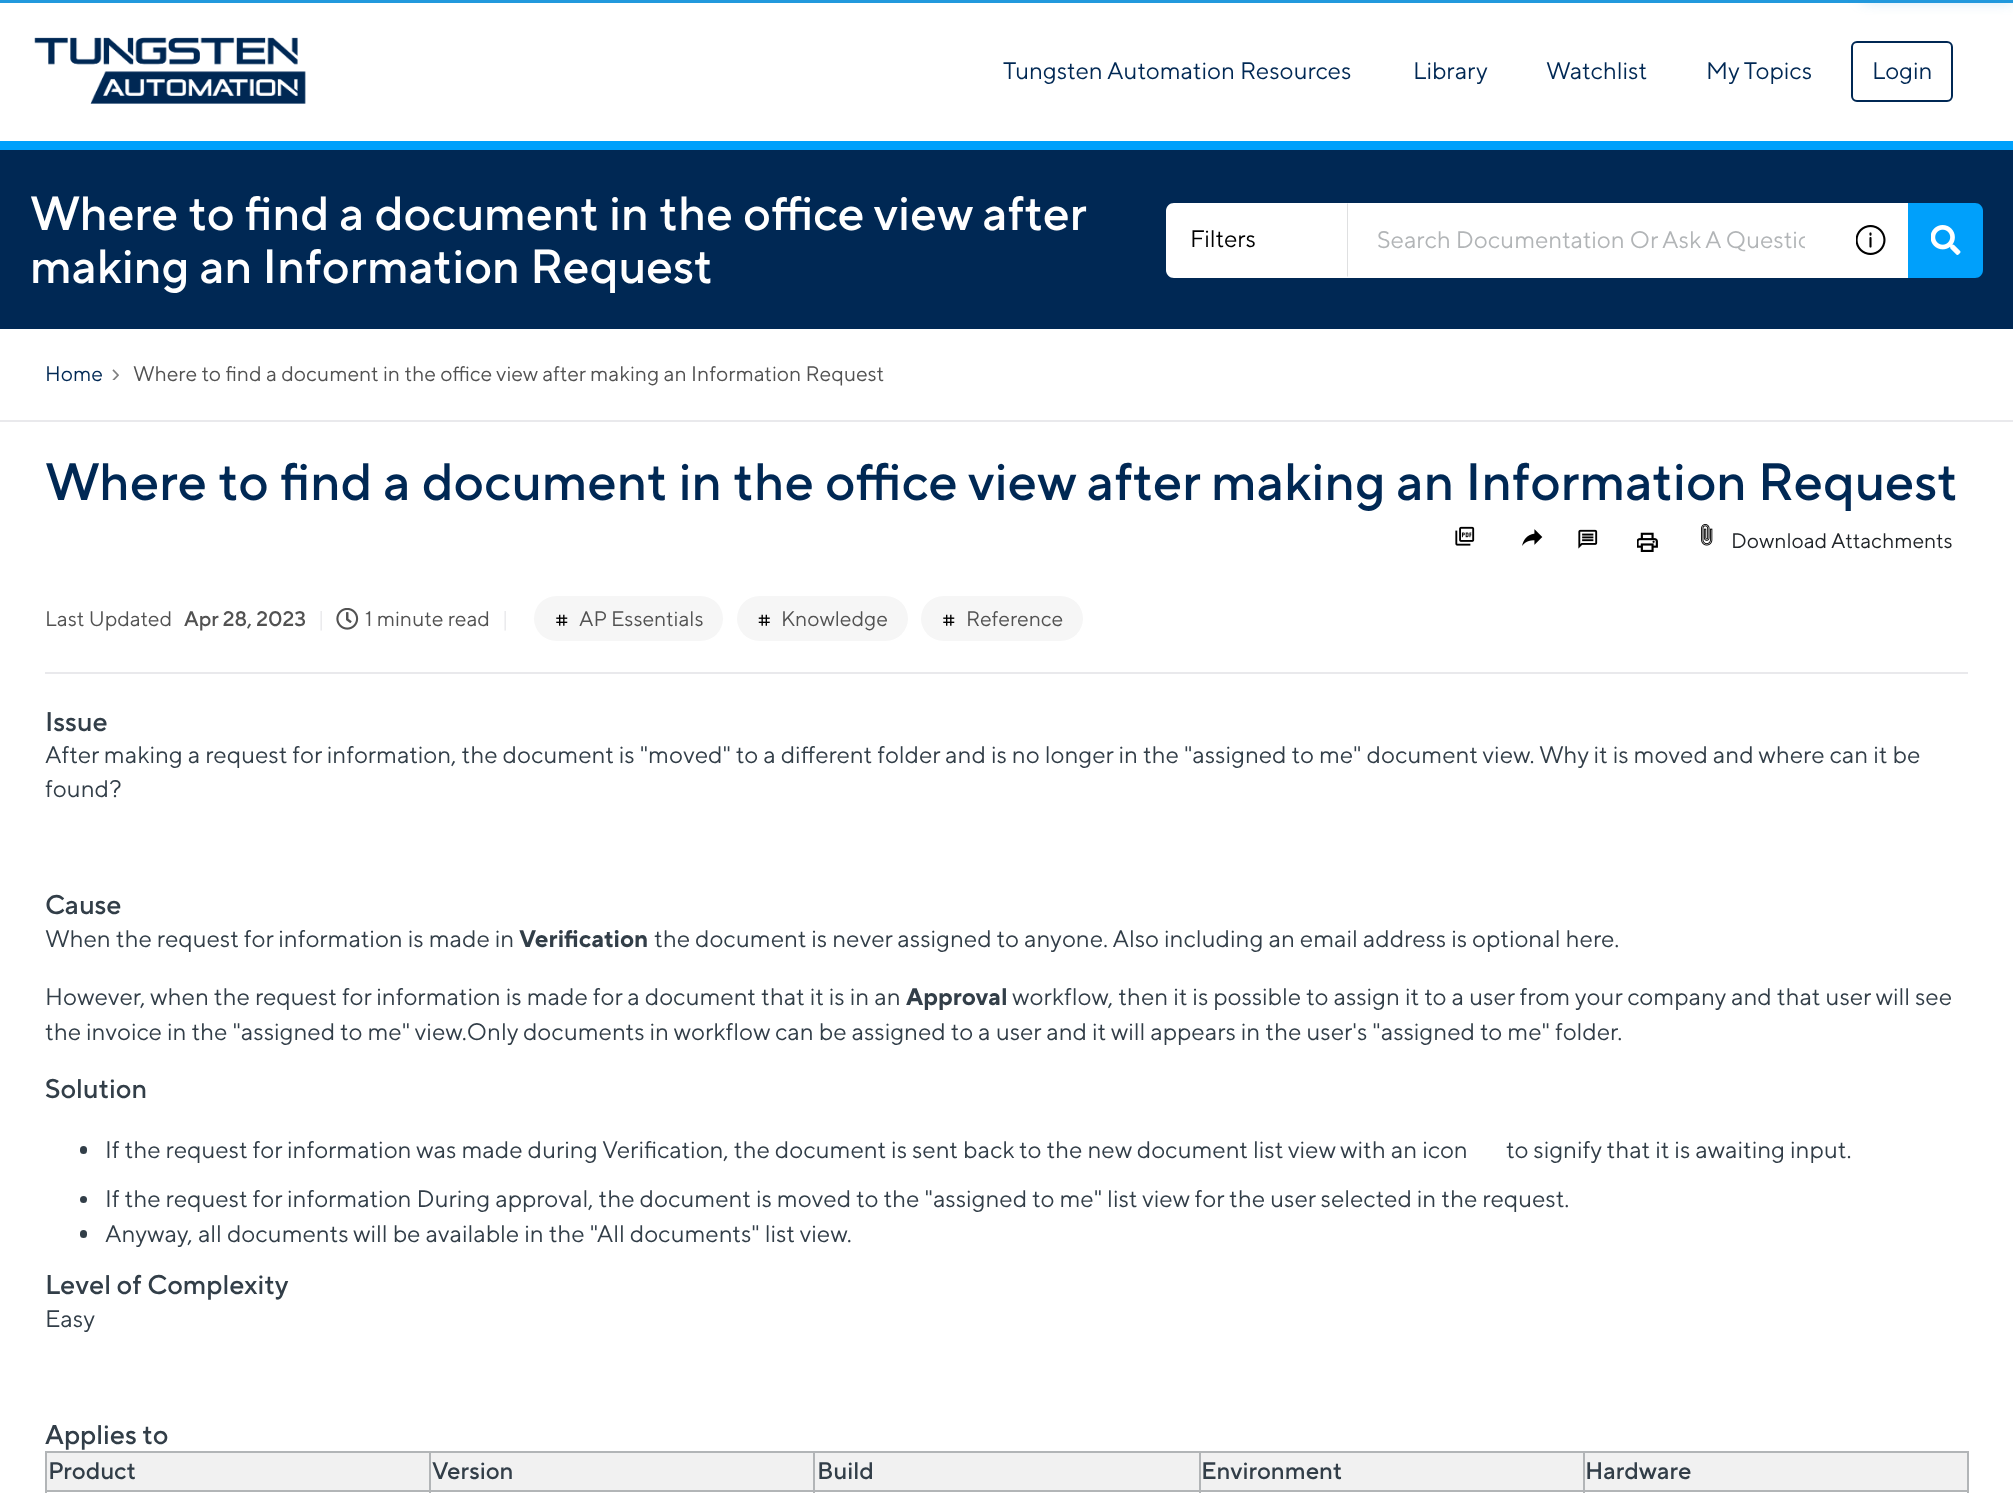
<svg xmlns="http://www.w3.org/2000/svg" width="2013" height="1493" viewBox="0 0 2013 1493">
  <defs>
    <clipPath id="clip1"><rect x="1377" y="225" width="428" height="29"/></clipPath>
  </defs>
  <rect width="100%" height="100%" fill="rgb(255,255,255)"/>
  <rect x="0" y="0" width="2013" height="3" fill="rgb(34,153,221)"/>
  <rect x="1863" y="-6" width="150" height="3" fill="rgb(34,153,221)" filter="blur(7.5px)"/>
  <rect x="0" y="141" width="2013" height="9" fill="rgb(0,160,251)"/>
  <image x="34" y="37" width="272" height="67" href="pic1.png"/>
  <g font-family="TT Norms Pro" font-size="24" fill="rgb(0,40,84)">
    <text x="1003" y="79">Tungsten Automation Resources</text>
    <text x="1413" y="79">Library</text>
    <text x="1546" y="79">Watchlist</text>
    <text x="1706" y="79">My Topics</text>
  </g>
  <rect x="1852" y="42" width="100" height="59" rx="5" fill="none" stroke="rgb(0,40,84)" stroke-width="2"/>
  <text x="1872" y="79" font-family="TT Norms Pro" font-size="24" fill="rgb(0,40,84)">Login</text>
  <rect x="0" y="150" width="2013" height="179" fill="rgb(0,40,84)"/>
  <g font-family="TT Norms Pro" font-size="48" font-weight="500" fill="rgb(255,255,255)">
    <text>
      <tspan x="30" y="230">Where to find a document in the office view after</tspan>
      <tspan x="30" y="283">making an Information Request</tspan>
    </text>
  </g>
  <path d="M1174 203H1349V278H1174C1169.5 278 1166 274.5 1166 270V211C1166 206.5 1169.5 203 1174 203Z" fill="rgb(255,255,255)"/>
  <path d="M1348 203V277L1347 276V204Z" fill="rgb(223,224,225)"/>
  <text x="1190" y="247" font-family="TT Norms Pro" font-size="24" fill="rgb(0,0,0)">Filters</text>
  <rect x="1349" y="203" width="559" height="75" fill="rgb(255,255,255)"/>
  <image x="1856" y="225" width="30" height="30" href="pic2.png"/>
  <path d="M1908 203H1975C1979.5 203 1983 206.5 1983 211V270C1983 274.5 1979.5 278 1975 278H1908Z" fill="rgb(0,160,251)"/>
  <image x="1931" y="225" width="30" height="30" href="pic3.png"/>
  <g clip-path="url(#clip1)">
    <text x="1377" y="248" font-family="TT Norms Pro" font-size="24" fill="rgb(178,181,183)">Search Documentation Or Ask A Questio</text>
  </g>
  <rect x="0" y="420" width="2013" height="2" fill="rgb(233,233,236)"/>
  <text x="45" y="381" font-family="TT Norms Pro" font-size="21" fill="rgb(0,40,84)">Home</text>
  <image x="112" y="369" width="7" height="11" href="pic4.png"/>
  <text x="133" y="381" font-family="TT Norms Pro" font-size="21" fill="rgb(82,82,82)">Where to find a document in the office view after making an Information Request</text>
  <rect x="45" y="672" width="1923" height="2" fill="rgb(233,233,236)"/>
  <text x="45" y="500" font-family="TT Norms Pro" font-size="52.5" font-weight="500" fill="rgb(0,40,84)">Where to find a document in the office view after making an Information Request</text>
  <image x="1455" y="526" width="20" height="20" href="pic5.png"/>
  <image x="1522" y="529" width="21" height="17" href="pic6.png"/>
  <image x="1578" y="529" width="20" height="20" href="pic7.png"/>
  <image x="1637" y="532" width="21" height="20" href="pic8.png"/>
  <image x="1701" y="524" width="12" height="22" href="pic9.png"/>
  <text x="1731" y="548" font-family="TT Norms Pro" font-size="21" fill="rgb(33,37,41)">Download Attachments</text>
  <text x="45" y="626" font-family="TT Norms Pro" font-size="21" fill="rgb(82,82,82)">Last Updated</text>
  <text x="184" y="626" font-family="TT Norms Pro" font-size="21" font-weight="500" fill="rgb(82,82,82)">Apr 28, 2023</text>
  <text x="318" y="626" font-family="TT Norms Pro" font-size="21" fill="rgb(233,233,236)">|</text>
  <image x="336" y="608" width="23" height="22" href="pic10.png"/>
  <text x="365" y="626" font-family="TT Norms Pro" font-size="21" fill="rgb(82,82,82)">1 minute read</text>
  <text x="502" y="626" font-family="TT Norms Pro" font-size="21" fill="rgb(233,233,236)">|</text>
  <rect x="534" y="596" width="189" height="45" rx="22.5" fill="rgb(246,246,246)"/>
  <image x="556" y="614" width="12" height="12" href="pic11.png"/>
  <text x="579" y="626" font-family="TT Norms Pro" font-size="21" fill="rgb(82,82,82)">AP Essentials</text>
  <rect x="737" y="596" width="171" height="45" rx="22.5" fill="rgb(246,246,246)"/>
  <image x="758" y="614" width="12" height="12" href="pic12.png"/>
  <text x="781" y="626" font-family="TT Norms Pro" font-size="21" fill="rgb(82,82,82)">Knowledge</text>
  <rect x="921" y="596" width="162" height="45" rx="22.5" fill="rgb(246,246,246)"/>
  <image x="943" y="614" width="12" height="12" href="pic11.png"/>
  <text x="966" y="626" font-family="TT Norms Pro" font-size="21" fill="rgb(82,82,82)">Reference</text>
  <text x="45" y="731" font-family="TT Norms Pro" font-size="27" font-weight="500" fill="rgb(50,62,72)">Issue</text>
  <g font-family="TT Norms Pro" font-size="24" fill="rgb(50,62,72)">
    <text>
      <tspan x="45" y="763">After making a request for information, the document is "moved" to a different folder and is no longer in the "assigned to me" document view. Why it is moved and where can it be</tspan>
      <tspan x="45" y="797">found?</tspan>
    </text>
  </g>
  <text x="45" y="914" font-family="TT Norms Pro" font-size="27" font-weight="500" fill="rgb(50,62,72)">Cause</text>
  <text x="45" y="947" font-family="TT Norms Pro" font-size="24" fill="rgb(50,62,72)">When the request for information is made in</text>
  <text x="519" y="947" font-family="TT Norms Pro" font-size="24" font-weight="bold" fill="rgb(50,62,72)">Verification</text>
  <g font-family="TT Norms Pro" font-size="24" fill="rgb(50,62,72)">
    <text x="654" y="947">the document is never assigned to anyone. Also including an email address is optional here.</text>
    <text x="45" y="1005">However, when the request for information is made for a document that it is in an</text>
  </g>
  <text x="906" y="1005" font-family="TT Norms Pro" font-size="24" font-weight="bold" fill="rgb(50,62,72)">Approval</text>
  <g font-family="TT Norms Pro" font-size="24" fill="rgb(50,62,72)">
    <text x="1012" y="1005">workflow, then it is possible to assign it to a user from your company and that user will see</text>
    <text x="45" y="1040">the invoice in the "assigned to me" view.Only documents in workflow can be assigned to a user and it will appears in the user's "assigned to me" folder.</text>
  </g>
  <text x="45" y="1098" font-family="TT Norms Pro" font-size="27" font-weight="500" fill="rgb(50,62,72)">Solution</text>
  <rect x="80" y="1146" width="7" height="8" rx="3.5" fill="rgb(50,62,72)"/>
  <g font-family="TT Norms Pro" font-size="24" fill="rgb(50,62,72)">
    <text x="105" y="1158">If the request for information was made during Verification, the document is sent back to the new document list view with an icon</text>
    <text x="1506" y="1158">to signify that it is awaiting input.</text>
  </g>
  <circle cx="83.5" cy="1199.5" r="3.5" fill="rgb(50,62,72)"/>
  <text x="105" y="1207" font-family="TT Norms Pro" font-size="24" fill="rgb(50,62,72)">If the request for information During approval, the document is moved to the "assigned to me" list view for the user selected in the request.</text>
  <rect x="80" y="1230" width="7" height="8" rx="3.5" fill="rgb(50,62,72)"/>
  <text x="105" y="1242" font-family="TT Norms Pro" font-size="24" fill="rgb(50,62,72)">Anyway, all documents will be available in the "All documents" list view.</text>
  <text x="45" y="1294" font-family="TT Norms Pro" font-size="27" font-weight="500" fill="rgb(50,62,72)">Level of Complexity</text>
  <text x="45" y="1327" font-family="TT Norms Pro" font-size="24" fill="rgb(50,62,72)">Easy</text>
  <text x="45" y="1444" font-family="TT Norms Pro" font-size="27" font-weight="500" fill="rgb(50,62,72)">Applies to</text>
  <rect x="47" y="1453" width="1920" height="37" fill="rgb(241,241,241)"/>
  <rect x="1583" y="1451" width="385" height="2" fill="rgb(178,181,183)"/>
  <rect x="1583" y="1490" width="385" height="2" fill="rgb(178,181,183)"/>
  <rect x="1583" y="1490" width="2" height="3" fill="rgb(178,181,183)"/>
  <rect x="1199" y="1490" width="385" height="2" fill="rgb(178,181,183)"/>
  <rect x="1583" y="1451" width="2" height="40" fill="rgb(178,181,183)"/>
  <rect x="1199" y="1451" width="385" height="2" fill="rgb(178,181,183)"/>
  <rect x="1199" y="1490" width="2" height="3" fill="rgb(178,181,183)"/>
  <rect x="813" y="1490" width="387" height="2" fill="rgb(178,181,183)"/>
  <rect x="1199" y="1451" width="2" height="40" fill="rgb(178,181,183)"/>
  <rect x="813" y="1451" width="387" height="2" fill="rgb(178,181,183)"/>
  <rect x="813" y="1490" width="2" height="3" fill="rgb(178,181,183)"/>
  <rect x="429" y="1490" width="386" height="2" fill="rgb(178,181,183)"/>
  <rect x="813" y="1451" width="2" height="40" fill="rgb(178,181,183)"/>
  <rect x="429" y="1451" width="386" height="2" fill="rgb(178,181,183)"/>
  <rect x="429" y="1490" width="2" height="3" fill="rgb(178,181,183)"/>
  <rect x="45" y="1490" width="386" height="2" fill="rgb(178,181,183)"/>
  <rect x="429" y="1451" width="2" height="40" fill="rgb(178,181,183)"/>
  <rect x="45" y="1451" width="386" height="2" fill="rgb(178,181,183)"/>
  <rect x="45" y="1490" width="2" height="3" fill="rgb(178,181,183)"/>
  <rect x="45" y="1451" width="2" height="40" fill="rgb(178,181,183)"/>
  <g font-family="TT Norms Pro" font-size="24" font-weight="500" fill="rgb(50,62,72)">
    <text x="48" y="1479">Product</text>
    <text x="432" y="1479">Version</text>
    <text x="817" y="1479">Build</text>
    <text x="1201" y="1479">Environment</text>
  </g>
  <rect x="1967" y="1490" width="2" height="3" fill="rgb(178,181,183)"/>
  <rect x="1967" y="1451" width="2" height="40" fill="rgb(178,181,183)"/>
  <text x="1585" y="1479" font-family="TT Norms Pro" font-size="24" font-weight="500" fill="rgb(50,62,72)">Hardware</text>
</svg>
